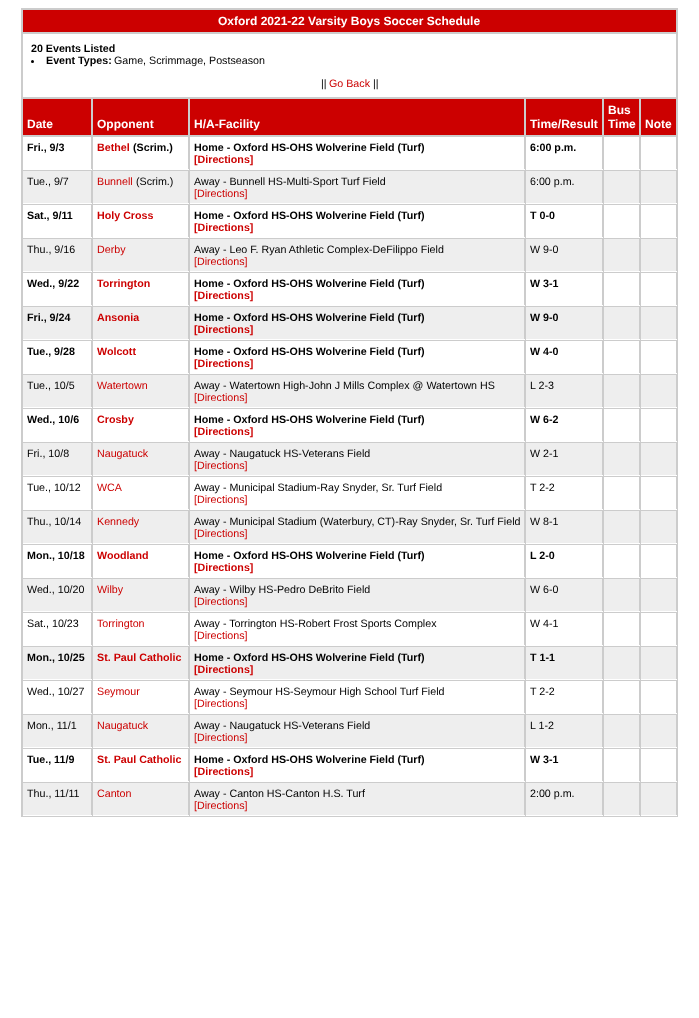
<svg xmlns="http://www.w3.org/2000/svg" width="699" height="1018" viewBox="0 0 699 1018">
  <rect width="100%" height="100%" fill="rgb(255,255,255)"/>
  <rect x="21" y="8" width="657" height="809" fill="rgb(204,204,204)"/>
  <rect x="23" y="10" width="653" height="22" fill="rgb(204,0,0)"/>
  <text x="218" y="25" font-family="Liberation Sans" font-size="12" font-weight="bold" fill="rgb(255,255,255)">Oxford 2021-22 Varsity Boys Soccer Schedule</text>
  <rect x="23" y="34" width="653" height="63" fill="rgb(255,255,255)"/>
  <text x="31" y="52" font-family="Liberation Sans" font-size="10.7" font-weight="bold" fill="rgb(0,0,0)">20 Events Listed</text>
  <circle cx="32.5" cy="61.5" r="1.5" fill="rgb(0,0,0)"/>
  <text x="46" y="64" font-family="Liberation Sans" font-size="10.7" font-weight="bold" fill="rgb(0,0,0)">Event Types:</text>
  <g font-family="Liberation Sans" font-size="10.7" fill="rgb(0,0,0)">
    <text x="114" y="64">Game, Scrimmage, Postseason</text>
    <text x="321" y="87">||</text>
  </g>
  <text x="329" y="87" font-family="Liberation Sans" font-size="10.7" fill="rgb(204,0,0)">Go Back</text>
  <text x="373" y="87" font-family="Liberation Sans" font-size="10.7" fill="rgb(0,0,0)">||</text>
  <rect x="23" y="99" width="68" height="36" fill="rgb(204,0,0)"/>
  <text x="27" y="128" font-family="Liberation Sans" font-size="12" font-weight="bold" fill="rgb(255,255,255)">Date</text>
  <rect x="93" y="99" width="95" height="36" fill="rgb(204,0,0)"/>
  <text x="97" y="128" font-family="Liberation Sans" font-size="12" font-weight="bold" fill="rgb(255,255,255)">Opponent</text>
  <rect x="190" y="99" width="334" height="36" fill="rgb(204,0,0)"/>
  <text x="194" y="128" font-family="Liberation Sans" font-size="12" font-weight="bold" fill="rgb(255,255,255)">H/A-Facility</text>
  <rect x="526" y="99" width="76" height="36" fill="rgb(204,0,0)"/>
  <text x="530" y="128" font-family="Liberation Sans" font-size="12" font-weight="bold" fill="rgb(255,255,255)">Time/Result</text>
  <rect x="604" y="99" width="35" height="36" fill="rgb(204,0,0)"/>
  <g font-family="Liberation Sans" font-size="12" font-weight="bold" fill="rgb(255,255,255)">
    <text>
      <tspan x="608" y="114">Bus</tspan>
      <tspan x="608" y="128">Time</tspan>
    </text>
  </g>
  <rect x="641" y="99" width="35" height="36" fill="rgb(204,0,0)"/>
  <text x="645" y="128" font-family="Liberation Sans" font-size="12" font-weight="bold" fill="rgb(255,255,255)">Note</text>
  <rect x="23" y="137" width="653" height="32" fill="rgb(255,255,255)"/>
  <rect x="639" y="136" width="1" height="34" fill="rgb(204,204,204)"/>
  <rect x="603" y="169" width="74" height="1" fill="rgb(255,255,255)"/>
  <rect x="603" y="136" width="1" height="34" fill="rgb(204,204,204)"/>
  <rect x="91" y="136" width="1" height="34" fill="rgb(204,204,204)"/>
  <rect x="22" y="169" width="70" height="1" fill="rgb(255,255,255)"/>
  <rect x="22" y="169" width="1" height="1" fill="rgb(204,204,204)"/>
  <text x="27" y="151" font-family="Liberation Sans" font-size="10.7" font-weight="bold" fill="rgb(0,0,0)">Fri., 9/3</text>
  <rect x="188" y="136" width="1" height="34" fill="rgb(204,204,204)"/>
  <rect x="92" y="169" width="97" height="1" fill="rgb(255,255,255)"/>
  <rect x="92" y="136" width="1" height="34" fill="rgb(204,204,204)"/>
  <text x="97" y="151" font-family="Liberation Sans" font-size="10.7" font-weight="bold" fill="rgb(204,0,0)">Bethel</text>
  <text x="133" y="151" font-family="Liberation Sans" font-size="10.7" font-weight="bold" fill="rgb(0,0,0)">(Scrim.)</text>
  <rect x="524" y="136" width="1" height="34" fill="rgb(204,204,204)"/>
  <rect x="189" y="169" width="336" height="1" fill="rgb(255,255,255)"/>
  <rect x="189" y="136" width="1" height="34" fill="rgb(204,204,204)"/>
  <text x="194" y="151" font-family="Liberation Sans" font-size="10.7" font-weight="bold" fill="rgb(0,0,0)">Home - Oxford HS-OHS Wolverine Field (Turf)</text>
  <text x="194" y="163" font-family="Liberation Sans" font-size="10.7" font-weight="bold" fill="rgb(204,0,0)">[Directions]</text>
  <rect x="602" y="136" width="1" height="34" fill="rgb(204,204,204)"/>
  <rect x="525" y="169" width="78" height="1" fill="rgb(255,255,255)"/>
  <rect x="525" y="136" width="1" height="34" fill="rgb(204,204,204)"/>
  <text x="530" y="151" font-family="Liberation Sans" font-size="10.7" font-weight="bold" fill="rgb(0,0,0)">6:00 p.m.</text>
  <rect x="640" y="136" width="1" height="34" fill="rgb(204,204,204)"/>
  <rect x="23" y="171" width="653" height="32" fill="rgb(238,238,238)"/>
  <rect x="639" y="170" width="1" height="34" fill="rgb(204,204,204)"/>
  <rect x="603" y="203" width="74" height="1" fill="rgb(255,255,255)"/>
  <rect x="603" y="170" width="1" height="34" fill="rgb(204,204,204)"/>
  <rect x="91" y="170" width="1" height="34" fill="rgb(204,204,204)"/>
  <rect x="22" y="203" width="70" height="1" fill="rgb(255,255,255)"/>
  <rect x="22" y="203" width="1" height="1" fill="rgb(204,204,204)"/>
  <text x="27" y="185" font-family="Liberation Sans" font-size="10.7" fill="rgb(0,0,0)">Tue., 9/7</text>
  <rect x="188" y="170" width="1" height="34" fill="rgb(204,204,204)"/>
  <rect x="92" y="203" width="97" height="1" fill="rgb(255,255,255)"/>
  <rect x="92" y="170" width="1" height="34" fill="rgb(204,204,204)"/>
  <text x="97" y="185" font-family="Liberation Sans" font-size="10.7" fill="rgb(204,0,0)">Bunnell</text>
  <text x="136" y="185" font-family="Liberation Sans" font-size="10.7" fill="rgb(0,0,0)">(Scrim.)</text>
  <rect x="524" y="170" width="1" height="34" fill="rgb(204,204,204)"/>
  <rect x="189" y="203" width="336" height="1" fill="rgb(255,255,255)"/>
  <rect x="189" y="170" width="1" height="34" fill="rgb(204,204,204)"/>
  <text x="194" y="185" font-family="Liberation Sans" font-size="10.7" fill="rgb(0,0,0)">Away - Bunnell HS-Multi-Sport Turf Field</text>
  <text x="194" y="197" font-family="Liberation Sans" font-size="10.7" fill="rgb(204,0,0)">[Directions]</text>
  <rect x="602" y="170" width="1" height="34" fill="rgb(204,204,204)"/>
  <rect x="525" y="203" width="78" height="1" fill="rgb(255,255,255)"/>
  <rect x="525" y="170" width="1" height="34" fill="rgb(204,204,204)"/>
  <text x="530" y="185" font-family="Liberation Sans" font-size="10.7" fill="rgb(0,0,0)">6:00 p.m.</text>
  <rect x="640" y="170" width="1" height="34" fill="rgb(204,204,204)"/>
  <rect x="23" y="205" width="653" height="32" fill="rgb(255,255,255)"/>
  <rect x="639" y="204" width="1" height="34" fill="rgb(204,204,204)"/>
  <rect x="603" y="237" width="74" height="1" fill="rgb(255,255,255)"/>
  <rect x="603" y="204" width="1" height="34" fill="rgb(204,204,204)"/>
  <rect x="91" y="204" width="1" height="34" fill="rgb(204,204,204)"/>
  <rect x="22" y="237" width="70" height="1" fill="rgb(255,255,255)"/>
  <rect x="22" y="237" width="1" height="1" fill="rgb(204,204,204)"/>
  <text x="27" y="219" font-family="Liberation Sans" font-size="10.7" font-weight="bold" fill="rgb(0,0,0)">Sat., 9/11</text>
  <rect x="188" y="204" width="1" height="34" fill="rgb(204,204,204)"/>
  <rect x="92" y="237" width="97" height="1" fill="rgb(255,255,255)"/>
  <rect x="92" y="204" width="1" height="34" fill="rgb(204,204,204)"/>
  <text x="97" y="219" font-family="Liberation Sans" font-size="10.7" font-weight="bold" fill="rgb(204,0,0)">Holy Cross</text>
  <rect x="524" y="204" width="1" height="34" fill="rgb(204,204,204)"/>
  <rect x="189" y="237" width="336" height="1" fill="rgb(255,255,255)"/>
  <rect x="189" y="204" width="1" height="34" fill="rgb(204,204,204)"/>
  <text x="194" y="219" font-family="Liberation Sans" font-size="10.7" font-weight="bold" fill="rgb(0,0,0)">Home - Oxford HS-OHS Wolverine Field (Turf)</text>
  <text x="194" y="231" font-family="Liberation Sans" font-size="10.7" font-weight="bold" fill="rgb(204,0,0)">[Directions]</text>
  <rect x="602" y="204" width="1" height="34" fill="rgb(204,204,204)"/>
  <rect x="525" y="237" width="78" height="1" fill="rgb(255,255,255)"/>
  <rect x="525" y="204" width="1" height="34" fill="rgb(204,204,204)"/>
  <text x="530" y="219" font-family="Liberation Sans" font-size="10.7" font-weight="bold" fill="rgb(0,0,0)">T 0-0</text>
  <rect x="640" y="204" width="1" height="34" fill="rgb(204,204,204)"/>
  <rect x="23" y="239" width="653" height="32" fill="rgb(238,238,238)"/>
  <rect x="639" y="238" width="1" height="34" fill="rgb(204,204,204)"/>
  <rect x="603" y="271" width="74" height="1" fill="rgb(255,255,255)"/>
  <rect x="603" y="238" width="1" height="34" fill="rgb(204,204,204)"/>
  <rect x="91" y="238" width="1" height="34" fill="rgb(204,204,204)"/>
  <rect x="22" y="271" width="70" height="1" fill="rgb(255,255,255)"/>
  <rect x="22" y="271" width="1" height="1" fill="rgb(204,204,204)"/>
  <text x="27" y="253" font-family="Liberation Sans" font-size="10.7" fill="rgb(0,0,0)">Thu., 9/16</text>
  <rect x="188" y="238" width="1" height="34" fill="rgb(204,204,204)"/>
  <rect x="92" y="271" width="97" height="1" fill="rgb(255,255,255)"/>
  <rect x="92" y="238" width="1" height="34" fill="rgb(204,204,204)"/>
  <text x="97" y="253" font-family="Liberation Sans" font-size="10.7" fill="rgb(204,0,0)">Derby</text>
  <rect x="524" y="238" width="1" height="34" fill="rgb(204,204,204)"/>
  <rect x="189" y="271" width="336" height="1" fill="rgb(255,255,255)"/>
  <rect x="189" y="238" width="1" height="34" fill="rgb(204,204,204)"/>
  <text x="194" y="253" font-family="Liberation Sans" font-size="10.7" fill="rgb(0,0,0)">Away - Leo F. Ryan Athletic Complex-DeFilippo Field</text>
  <text x="194" y="265" font-family="Liberation Sans" font-size="10.7" fill="rgb(204,0,0)">[Directions]</text>
  <rect x="602" y="238" width="1" height="34" fill="rgb(204,204,204)"/>
  <rect x="525" y="271" width="78" height="1" fill="rgb(255,255,255)"/>
  <rect x="525" y="238" width="1" height="34" fill="rgb(204,204,204)"/>
  <text x="530" y="253" font-family="Liberation Sans" font-size="10.7" fill="rgb(0,0,0)">W 9-0</text>
  <rect x="640" y="238" width="1" height="34" fill="rgb(204,204,204)"/>
  <rect x="23" y="273" width="653" height="32" fill="rgb(255,255,255)"/>
  <rect x="639" y="272" width="1" height="34" fill="rgb(204,204,204)"/>
  <rect x="603" y="305" width="74" height="1" fill="rgb(255,255,255)"/>
  <rect x="603" y="272" width="1" height="34" fill="rgb(204,204,204)"/>
  <rect x="91" y="272" width="1" height="34" fill="rgb(204,204,204)"/>
  <rect x="22" y="305" width="70" height="1" fill="rgb(255,255,255)"/>
  <rect x="22" y="305" width="1" height="1" fill="rgb(204,204,204)"/>
  <text x="27" y="287" font-family="Liberation Sans" font-size="10.7" font-weight="bold" fill="rgb(0,0,0)">Wed., 9/22</text>
  <rect x="188" y="272" width="1" height="34" fill="rgb(204,204,204)"/>
  <rect x="92" y="305" width="97" height="1" fill="rgb(255,255,255)"/>
  <rect x="92" y="272" width="1" height="34" fill="rgb(204,204,204)"/>
  <text x="97" y="287" font-family="Liberation Sans" font-size="10.7" font-weight="bold" fill="rgb(204,0,0)">Torrington</text>
  <rect x="524" y="272" width="1" height="34" fill="rgb(204,204,204)"/>
  <rect x="189" y="305" width="336" height="1" fill="rgb(255,255,255)"/>
  <rect x="189" y="272" width="1" height="34" fill="rgb(204,204,204)"/>
  <text x="194" y="287" font-family="Liberation Sans" font-size="10.7" font-weight="bold" fill="rgb(0,0,0)">Home - Oxford HS-OHS Wolverine Field (Turf)</text>
  <text x="194" y="299" font-family="Liberation Sans" font-size="10.7" font-weight="bold" fill="rgb(204,0,0)">[Directions]</text>
  <rect x="602" y="272" width="1" height="34" fill="rgb(204,204,204)"/>
  <rect x="525" y="305" width="78" height="1" fill="rgb(255,255,255)"/>
  <rect x="525" y="272" width="1" height="34" fill="rgb(204,204,204)"/>
  <text x="530" y="287" font-family="Liberation Sans" font-size="10.7" font-weight="bold" fill="rgb(0,0,0)">W 3-1</text>
  <rect x="640" y="272" width="1" height="34" fill="rgb(204,204,204)"/>
  <rect x="23" y="307" width="653" height="32" fill="rgb(238,238,238)"/>
  <rect x="639" y="306" width="1" height="34" fill="rgb(204,204,204)"/>
  <rect x="603" y="339" width="74" height="1" fill="rgb(255,255,255)"/>
  <rect x="603" y="306" width="1" height="34" fill="rgb(204,204,204)"/>
  <rect x="91" y="306" width="1" height="34" fill="rgb(204,204,204)"/>
  <rect x="22" y="339" width="70" height="1" fill="rgb(255,255,255)"/>
  <rect x="22" y="339" width="1" height="1" fill="rgb(204,204,204)"/>
  <text x="27" y="321" font-family="Liberation Sans" font-size="10.7" font-weight="bold" fill="rgb(0,0,0)">Fri., 9/24</text>
  <rect x="188" y="306" width="1" height="34" fill="rgb(204,204,204)"/>
  <rect x="92" y="339" width="97" height="1" fill="rgb(255,255,255)"/>
  <rect x="92" y="306" width="1" height="34" fill="rgb(204,204,204)"/>
  <text x="97" y="321" font-family="Liberation Sans" font-size="10.7" font-weight="bold" fill="rgb(204,0,0)">Ansonia</text>
  <rect x="524" y="306" width="1" height="34" fill="rgb(204,204,204)"/>
  <rect x="189" y="339" width="336" height="1" fill="rgb(255,255,255)"/>
  <rect x="189" y="306" width="1" height="34" fill="rgb(204,204,204)"/>
  <text x="194" y="321" font-family="Liberation Sans" font-size="10.7" font-weight="bold" fill="rgb(0,0,0)">Home - Oxford HS-OHS Wolverine Field (Turf)</text>
  <text x="194" y="333" font-family="Liberation Sans" font-size="10.7" font-weight="bold" fill="rgb(204,0,0)">[Directions]</text>
  <rect x="602" y="306" width="1" height="34" fill="rgb(204,204,204)"/>
  <rect x="525" y="339" width="78" height="1" fill="rgb(255,255,255)"/>
  <rect x="525" y="306" width="1" height="34" fill="rgb(204,204,204)"/>
  <text x="530" y="321" font-family="Liberation Sans" font-size="10.7" font-weight="bold" fill="rgb(0,0,0)">W 9-0</text>
  <rect x="640" y="306" width="1" height="34" fill="rgb(204,204,204)"/>
  <rect x="23" y="341" width="653" height="32" fill="rgb(255,255,255)"/>
  <rect x="639" y="340" width="1" height="34" fill="rgb(204,204,204)"/>
  <rect x="603" y="373" width="74" height="1" fill="rgb(255,255,255)"/>
  <rect x="603" y="340" width="1" height="34" fill="rgb(204,204,204)"/>
  <rect x="91" y="340" width="1" height="34" fill="rgb(204,204,204)"/>
  <rect x="22" y="373" width="70" height="1" fill="rgb(255,255,255)"/>
  <rect x="22" y="373" width="1" height="1" fill="rgb(204,204,204)"/>
  <text x="27" y="355" font-family="Liberation Sans" font-size="10.7" font-weight="bold" fill="rgb(0,0,0)">Tue., 9/28</text>
  <rect x="188" y="340" width="1" height="34" fill="rgb(204,204,204)"/>
  <rect x="92" y="373" width="97" height="1" fill="rgb(255,255,255)"/>
  <rect x="92" y="340" width="1" height="34" fill="rgb(204,204,204)"/>
  <text x="97" y="355" font-family="Liberation Sans" font-size="10.7" font-weight="bold" fill="rgb(204,0,0)">Wolcott</text>
  <rect x="524" y="340" width="1" height="34" fill="rgb(204,204,204)"/>
  <rect x="189" y="373" width="336" height="1" fill="rgb(255,255,255)"/>
  <rect x="189" y="340" width="1" height="34" fill="rgb(204,204,204)"/>
  <text x="194" y="355" font-family="Liberation Sans" font-size="10.7" font-weight="bold" fill="rgb(0,0,0)">Home - Oxford HS-OHS Wolverine Field (Turf)</text>
  <text x="194" y="367" font-family="Liberation Sans" font-size="10.7" font-weight="bold" fill="rgb(204,0,0)">[Directions]</text>
  <rect x="602" y="340" width="1" height="34" fill="rgb(204,204,204)"/>
  <rect x="525" y="373" width="78" height="1" fill="rgb(255,255,255)"/>
  <rect x="525" y="340" width="1" height="34" fill="rgb(204,204,204)"/>
  <text x="530" y="355" font-family="Liberation Sans" font-size="10.7" font-weight="bold" fill="rgb(0,0,0)">W 4-0</text>
  <rect x="640" y="340" width="1" height="34" fill="rgb(204,204,204)"/>
  <rect x="23" y="375" width="653" height="32" fill="rgb(238,238,238)"/>
  <rect x="639" y="374" width="1" height="34" fill="rgb(204,204,204)"/>
  <rect x="603" y="407" width="74" height="1" fill="rgb(255,255,255)"/>
  <rect x="603" y="374" width="1" height="34" fill="rgb(204,204,204)"/>
  <rect x="91" y="374" width="1" height="34" fill="rgb(204,204,204)"/>
  <rect x="22" y="407" width="70" height="1" fill="rgb(255,255,255)"/>
  <rect x="22" y="407" width="1" height="1" fill="rgb(204,204,204)"/>
  <text x="27" y="389" font-family="Liberation Sans" font-size="10.7" fill="rgb(0,0,0)">Tue., 10/5</text>
  <rect x="188" y="374" width="1" height="34" fill="rgb(204,204,204)"/>
  <rect x="92" y="407" width="97" height="1" fill="rgb(255,255,255)"/>
  <rect x="92" y="374" width="1" height="34" fill="rgb(204,204,204)"/>
  <text x="97" y="389" font-family="Liberation Sans" font-size="10.7" fill="rgb(204,0,0)">Watertown</text>
  <rect x="524" y="374" width="1" height="34" fill="rgb(204,204,204)"/>
  <rect x="189" y="407" width="336" height="1" fill="rgb(255,255,255)"/>
  <rect x="189" y="374" width="1" height="34" fill="rgb(204,204,204)"/>
  <text x="194" y="389" font-family="Liberation Sans" font-size="10.7" fill="rgb(0,0,0)">Away - Watertown High-John J Mills Complex @ Watertown HS</text>
  <text x="194" y="401" font-family="Liberation Sans" font-size="10.7" fill="rgb(204,0,0)">[Directions]</text>
  <rect x="602" y="374" width="1" height="34" fill="rgb(204,204,204)"/>
  <rect x="525" y="407" width="78" height="1" fill="rgb(255,255,255)"/>
  <rect x="525" y="374" width="1" height="34" fill="rgb(204,204,204)"/>
  <text x="530" y="389" font-family="Liberation Sans" font-size="10.7" fill="rgb(0,0,0)">L 2-3</text>
  <rect x="640" y="374" width="1" height="34" fill="rgb(204,204,204)"/>
  <rect x="23" y="409" width="653" height="32" fill="rgb(255,255,255)"/>
  <rect x="639" y="408" width="1" height="34" fill="rgb(204,204,204)"/>
  <rect x="603" y="441" width="74" height="1" fill="rgb(255,255,255)"/>
  <rect x="603" y="408" width="1" height="34" fill="rgb(204,204,204)"/>
  <rect x="91" y="408" width="1" height="34" fill="rgb(204,204,204)"/>
  <rect x="22" y="441" width="70" height="1" fill="rgb(255,255,255)"/>
  <rect x="22" y="441" width="1" height="1" fill="rgb(204,204,204)"/>
  <text x="27" y="423" font-family="Liberation Sans" font-size="10.7" font-weight="bold" fill="rgb(0,0,0)">Wed., 10/6</text>
  <rect x="188" y="408" width="1" height="34" fill="rgb(204,204,204)"/>
  <rect x="92" y="441" width="97" height="1" fill="rgb(255,255,255)"/>
  <rect x="92" y="408" width="1" height="34" fill="rgb(204,204,204)"/>
  <text x="97" y="423" font-family="Liberation Sans" font-size="10.7" font-weight="bold" fill="rgb(204,0,0)">Crosby</text>
  <rect x="524" y="408" width="1" height="34" fill="rgb(204,204,204)"/>
  <rect x="189" y="441" width="336" height="1" fill="rgb(255,255,255)"/>
  <rect x="189" y="408" width="1" height="34" fill="rgb(204,204,204)"/>
  <text x="194" y="423" font-family="Liberation Sans" font-size="10.7" font-weight="bold" fill="rgb(0,0,0)">Home - Oxford HS-OHS Wolverine Field (Turf)</text>
  <text x="194" y="435" font-family="Liberation Sans" font-size="10.7" font-weight="bold" fill="rgb(204,0,0)">[Directions]</text>
  <rect x="602" y="408" width="1" height="34" fill="rgb(204,204,204)"/>
  <rect x="525" y="441" width="78" height="1" fill="rgb(255,255,255)"/>
  <rect x="525" y="408" width="1" height="34" fill="rgb(204,204,204)"/>
  <text x="530" y="423" font-family="Liberation Sans" font-size="10.7" font-weight="bold" fill="rgb(0,0,0)">W 6-2</text>
  <rect x="640" y="408" width="1" height="34" fill="rgb(204,204,204)"/>
  <rect x="23" y="443" width="653" height="32" fill="rgb(238,238,238)"/>
  <rect x="639" y="442" width="1" height="34" fill="rgb(204,204,204)"/>
  <rect x="603" y="475" width="74" height="1" fill="rgb(255,255,255)"/>
  <rect x="603" y="442" width="1" height="34" fill="rgb(204,204,204)"/>
  <rect x="91" y="442" width="1" height="34" fill="rgb(204,204,204)"/>
  <rect x="22" y="475" width="70" height="1" fill="rgb(255,255,255)"/>
  <rect x="22" y="475" width="1" height="1" fill="rgb(204,204,204)"/>
  <text x="27" y="457" font-family="Liberation Sans" font-size="10.7" fill="rgb(0,0,0)">Fri., 10/8</text>
  <rect x="188" y="442" width="1" height="34" fill="rgb(204,204,204)"/>
  <rect x="92" y="475" width="97" height="1" fill="rgb(255,255,255)"/>
  <rect x="92" y="442" width="1" height="34" fill="rgb(204,204,204)"/>
  <text x="97" y="457" font-family="Liberation Sans" font-size="10.7" fill="rgb(204,0,0)">Naugatuck</text>
  <rect x="524" y="442" width="1" height="34" fill="rgb(204,204,204)"/>
  <rect x="189" y="475" width="336" height="1" fill="rgb(255,255,255)"/>
  <rect x="189" y="442" width="1" height="34" fill="rgb(204,204,204)"/>
  <text x="194" y="457" font-family="Liberation Sans" font-size="10.7" fill="rgb(0,0,0)">Away - Naugatuck HS-Veterans Field</text>
  <text x="194" y="469" font-family="Liberation Sans" font-size="10.7" fill="rgb(204,0,0)">[Directions]</text>
  <rect x="602" y="442" width="1" height="34" fill="rgb(204,204,204)"/>
  <rect x="525" y="475" width="78" height="1" fill="rgb(255,255,255)"/>
  <rect x="525" y="442" width="1" height="34" fill="rgb(204,204,204)"/>
  <text x="530" y="457" font-family="Liberation Sans" font-size="10.7" fill="rgb(0,0,0)">W 2-1</text>
  <rect x="640" y="442" width="1" height="34" fill="rgb(204,204,204)"/>
  <rect x="23" y="477" width="653" height="32" fill="rgb(255,255,255)"/>
  <rect x="639" y="476" width="1" height="34" fill="rgb(204,204,204)"/>
  <rect x="603" y="509" width="74" height="1" fill="rgb(255,255,255)"/>
  <rect x="603" y="476" width="1" height="34" fill="rgb(204,204,204)"/>
  <rect x="91" y="476" width="1" height="34" fill="rgb(204,204,204)"/>
  <rect x="22" y="509" width="70" height="1" fill="rgb(255,255,255)"/>
  <rect x="22" y="509" width="1" height="1" fill="rgb(204,204,204)"/>
  <text x="27" y="491" font-family="Liberation Sans" font-size="10.7" fill="rgb(0,0,0)">Tue., 10/12</text>
  <rect x="188" y="476" width="1" height="34" fill="rgb(204,204,204)"/>
  <rect x="92" y="509" width="97" height="1" fill="rgb(255,255,255)"/>
  <rect x="92" y="476" width="1" height="34" fill="rgb(204,204,204)"/>
  <text x="97" y="491" font-family="Liberation Sans" font-size="10.7" fill="rgb(204,0,0)">WCA</text>
  <rect x="524" y="476" width="1" height="34" fill="rgb(204,204,204)"/>
  <rect x="189" y="509" width="336" height="1" fill="rgb(255,255,255)"/>
  <rect x="189" y="476" width="1" height="34" fill="rgb(204,204,204)"/>
  <text x="194" y="491" font-family="Liberation Sans" font-size="10.7" fill="rgb(0,0,0)">Away - Municipal Stadium-Ray Snyder, Sr. Turf Field</text>
  <text x="194" y="503" font-family="Liberation Sans" font-size="10.7" fill="rgb(204,0,0)">[Directions]</text>
  <rect x="602" y="476" width="1" height="34" fill="rgb(204,204,204)"/>
  <rect x="525" y="509" width="78" height="1" fill="rgb(255,255,255)"/>
  <rect x="525" y="476" width="1" height="34" fill="rgb(204,204,204)"/>
  <text x="530" y="491" font-family="Liberation Sans" font-size="10.7" fill="rgb(0,0,0)">T 2-2</text>
  <rect x="640" y="476" width="1" height="34" fill="rgb(204,204,204)"/>
  <rect x="23" y="511" width="653" height="32" fill="rgb(238,238,238)"/>
  <rect x="639" y="510" width="1" height="34" fill="rgb(204,204,204)"/>
  <rect x="603" y="543" width="74" height="1" fill="rgb(255,255,255)"/>
  <rect x="603" y="510" width="1" height="34" fill="rgb(204,204,204)"/>
  <rect x="91" y="510" width="1" height="34" fill="rgb(204,204,204)"/>
  <rect x="22" y="543" width="70" height="1" fill="rgb(255,255,255)"/>
  <rect x="22" y="543" width="1" height="1" fill="rgb(204,204,204)"/>
  <text x="27" y="525" font-family="Liberation Sans" font-size="10.7" fill="rgb(0,0,0)">Thu., 10/14</text>
  <rect x="188" y="510" width="1" height="34" fill="rgb(204,204,204)"/>
  <rect x="92" y="543" width="97" height="1" fill="rgb(255,255,255)"/>
  <rect x="92" y="510" width="1" height="34" fill="rgb(204,204,204)"/>
  <text x="97" y="525" font-family="Liberation Sans" font-size="10.7" fill="rgb(204,0,0)">Kennedy</text>
  <rect x="524" y="510" width="1" height="34" fill="rgb(204,204,204)"/>
  <rect x="189" y="543" width="336" height="1" fill="rgb(255,255,255)"/>
  <rect x="189" y="510" width="1" height="34" fill="rgb(204,204,204)"/>
  <text x="194" y="525" font-family="Liberation Sans" font-size="10.7" fill="rgb(0,0,0)">Away - Municipal Stadium (Waterbury, CT)-Ray Snyder, Sr. Turf Field</text>
  <text x="194" y="537" font-family="Liberation Sans" font-size="10.7" fill="rgb(204,0,0)">[Directions]</text>
  <rect x="602" y="510" width="1" height="34" fill="rgb(204,204,204)"/>
  <rect x="525" y="543" width="78" height="1" fill="rgb(255,255,255)"/>
  <rect x="525" y="510" width="1" height="34" fill="rgb(204,204,204)"/>
  <text x="530" y="525" font-family="Liberation Sans" font-size="10.7" fill="rgb(0,0,0)">W 8-1</text>
  <rect x="640" y="510" width="1" height="34" fill="rgb(204,204,204)"/>
  <rect x="23" y="545" width="653" height="32" fill="rgb(255,255,255)"/>
  <rect x="639" y="544" width="1" height="34" fill="rgb(204,204,204)"/>
  <rect x="603" y="577" width="74" height="1" fill="rgb(255,255,255)"/>
  <rect x="603" y="544" width="1" height="34" fill="rgb(204,204,204)"/>
  <rect x="91" y="544" width="1" height="34" fill="rgb(204,204,204)"/>
  <rect x="22" y="577" width="70" height="1" fill="rgb(255,255,255)"/>
  <rect x="22" y="577" width="1" height="1" fill="rgb(204,204,204)"/>
  <text x="27" y="559" font-family="Liberation Sans" font-size="10.7" font-weight="bold" fill="rgb(0,0,0)">Mon., 10/18</text>
  <rect x="188" y="544" width="1" height="34" fill="rgb(204,204,204)"/>
  <rect x="92" y="577" width="97" height="1" fill="rgb(255,255,255)"/>
  <rect x="92" y="544" width="1" height="34" fill="rgb(204,204,204)"/>
  <text x="97" y="559" font-family="Liberation Sans" font-size="10.7" font-weight="bold" fill="rgb(204,0,0)">Woodland</text>
  <rect x="524" y="544" width="1" height="34" fill="rgb(204,204,204)"/>
  <rect x="189" y="577" width="336" height="1" fill="rgb(255,255,255)"/>
  <rect x="189" y="544" width="1" height="34" fill="rgb(204,204,204)"/>
  <text x="194" y="559" font-family="Liberation Sans" font-size="10.7" font-weight="bold" fill="rgb(0,0,0)">Home - Oxford HS-OHS Wolverine Field (Turf)</text>
  <text x="194" y="571" font-family="Liberation Sans" font-size="10.7" font-weight="bold" fill="rgb(204,0,0)">[Directions]</text>
  <rect x="602" y="544" width="1" height="34" fill="rgb(204,204,204)"/>
  <rect x="525" y="577" width="78" height="1" fill="rgb(255,255,255)"/>
  <rect x="525" y="544" width="1" height="34" fill="rgb(204,204,204)"/>
  <text x="530" y="559" font-family="Liberation Sans" font-size="10.7" font-weight="bold" fill="rgb(0,0,0)">L 2-0</text>
  <rect x="640" y="544" width="1" height="34" fill="rgb(204,204,204)"/>
  <rect x="23" y="579" width="653" height="32" fill="rgb(238,238,238)"/>
  <rect x="639" y="578" width="1" height="34" fill="rgb(204,204,204)"/>
  <rect x="603" y="611" width="74" height="1" fill="rgb(255,255,255)"/>
  <rect x="603" y="578" width="1" height="34" fill="rgb(204,204,204)"/>
  <rect x="91" y="578" width="1" height="34" fill="rgb(204,204,204)"/>
  <rect x="22" y="611" width="70" height="1" fill="rgb(255,255,255)"/>
  <rect x="22" y="611" width="1" height="1" fill="rgb(204,204,204)"/>
  <text x="27" y="593" font-family="Liberation Sans" font-size="10.7" fill="rgb(0,0,0)">Wed., 10/20</text>
  <rect x="188" y="578" width="1" height="34" fill="rgb(204,204,204)"/>
  <rect x="92" y="611" width="97" height="1" fill="rgb(255,255,255)"/>
  <rect x="92" y="578" width="1" height="34" fill="rgb(204,204,204)"/>
  <text x="97" y="593" font-family="Liberation Sans" font-size="10.7" fill="rgb(204,0,0)">Wilby</text>
  <rect x="524" y="578" width="1" height="34" fill="rgb(204,204,204)"/>
  <rect x="189" y="611" width="336" height="1" fill="rgb(255,255,255)"/>
  <rect x="189" y="578" width="1" height="34" fill="rgb(204,204,204)"/>
  <text x="194" y="593" font-family="Liberation Sans" font-size="10.7" fill="rgb(0,0,0)">Away - Wilby HS-Pedro DeBrito Field</text>
  <text x="194" y="605" font-family="Liberation Sans" font-size="10.7" fill="rgb(204,0,0)">[Directions]</text>
  <rect x="602" y="578" width="1" height="34" fill="rgb(204,204,204)"/>
  <rect x="525" y="611" width="78" height="1" fill="rgb(255,255,255)"/>
  <rect x="525" y="578" width="1" height="34" fill="rgb(204,204,204)"/>
  <text x="530" y="593" font-family="Liberation Sans" font-size="10.7" fill="rgb(0,0,0)">W 6-0</text>
  <rect x="640" y="578" width="1" height="34" fill="rgb(204,204,204)"/>
  <rect x="23" y="613" width="653" height="32" fill="rgb(255,255,255)"/>
  <rect x="639" y="612" width="1" height="34" fill="rgb(204,204,204)"/>
  <rect x="603" y="645" width="74" height="1" fill="rgb(255,255,255)"/>
  <rect x="603" y="612" width="1" height="34" fill="rgb(204,204,204)"/>
  <rect x="91" y="612" width="1" height="34" fill="rgb(204,204,204)"/>
  <rect x="22" y="645" width="70" height="1" fill="rgb(255,255,255)"/>
  <rect x="22" y="645" width="1" height="1" fill="rgb(204,204,204)"/>
  <text x="27" y="627" font-family="Liberation Sans" font-size="10.7" fill="rgb(0,0,0)">Sat., 10/23</text>
  <rect x="188" y="612" width="1" height="34" fill="rgb(204,204,204)"/>
  <rect x="92" y="645" width="97" height="1" fill="rgb(255,255,255)"/>
  <rect x="92" y="612" width="1" height="34" fill="rgb(204,204,204)"/>
  <text x="97" y="627" font-family="Liberation Sans" font-size="10.7" fill="rgb(204,0,0)">Torrington</text>
  <rect x="524" y="612" width="1" height="34" fill="rgb(204,204,204)"/>
  <rect x="189" y="645" width="336" height="1" fill="rgb(255,255,255)"/>
  <rect x="189" y="612" width="1" height="34" fill="rgb(204,204,204)"/>
  <text x="194" y="627" font-family="Liberation Sans" font-size="10.7" fill="rgb(0,0,0)">Away - Torrington HS-Robert Frost Sports Complex</text>
  <text x="194" y="639" font-family="Liberation Sans" font-size="10.7" fill="rgb(204,0,0)">[Directions]</text>
  <rect x="602" y="612" width="1" height="34" fill="rgb(204,204,204)"/>
  <rect x="525" y="645" width="78" height="1" fill="rgb(255,255,255)"/>
  <rect x="525" y="612" width="1" height="34" fill="rgb(204,204,204)"/>
  <text x="530" y="627" font-family="Liberation Sans" font-size="10.7" fill="rgb(0,0,0)">W 4-1</text>
  <rect x="640" y="612" width="1" height="34" fill="rgb(204,204,204)"/>
  <rect x="23" y="647" width="653" height="32" fill="rgb(238,238,238)"/>
  <rect x="639" y="646" width="1" height="34" fill="rgb(204,204,204)"/>
  <rect x="603" y="679" width="74" height="1" fill="rgb(255,255,255)"/>
  <rect x="603" y="646" width="1" height="34" fill="rgb(204,204,204)"/>
  <rect x="91" y="646" width="1" height="34" fill="rgb(204,204,204)"/>
  <rect x="22" y="679" width="70" height="1" fill="rgb(255,255,255)"/>
  <rect x="22" y="679" width="1" height="1" fill="rgb(204,204,204)"/>
  <text x="27" y="661" font-family="Liberation Sans" font-size="10.7" font-weight="bold" fill="rgb(0,0,0)">Mon., 10/25</text>
  <rect x="188" y="646" width="1" height="34" fill="rgb(204,204,204)"/>
  <rect x="92" y="679" width="97" height="1" fill="rgb(255,255,255)"/>
  <rect x="92" y="646" width="1" height="34" fill="rgb(204,204,204)"/>
  <text x="97" y="661" font-family="Liberation Sans" font-size="10.7" font-weight="bold" fill="rgb(204,0,0)">St. Paul Catholic</text>
  <rect x="524" y="646" width="1" height="34" fill="rgb(204,204,204)"/>
  <rect x="189" y="679" width="336" height="1" fill="rgb(255,255,255)"/>
  <rect x="189" y="646" width="1" height="34" fill="rgb(204,204,204)"/>
  <text x="194" y="661" font-family="Liberation Sans" font-size="10.7" font-weight="bold" fill="rgb(0,0,0)">Home - Oxford HS-OHS Wolverine Field (Turf)</text>
  <text x="194" y="673" font-family="Liberation Sans" font-size="10.7" font-weight="bold" fill="rgb(204,0,0)">[Directions]</text>
  <rect x="602" y="646" width="1" height="34" fill="rgb(204,204,204)"/>
  <rect x="525" y="679" width="78" height="1" fill="rgb(255,255,255)"/>
  <rect x="525" y="646" width="1" height="34" fill="rgb(204,204,204)"/>
  <text x="530" y="661" font-family="Liberation Sans" font-size="10.7" font-weight="bold" fill="rgb(0,0,0)">T 1-1</text>
  <rect x="640" y="646" width="1" height="34" fill="rgb(204,204,204)"/>
  <rect x="23" y="681" width="653" height="32" fill="rgb(255,255,255)"/>
  <rect x="639" y="680" width="1" height="34" fill="rgb(204,204,204)"/>
  <rect x="603" y="713" width="74" height="1" fill="rgb(255,255,255)"/>
  <rect x="603" y="680" width="1" height="34" fill="rgb(204,204,204)"/>
  <rect x="91" y="680" width="1" height="34" fill="rgb(204,204,204)"/>
  <rect x="22" y="713" width="70" height="1" fill="rgb(255,255,255)"/>
  <rect x="22" y="713" width="1" height="1" fill="rgb(204,204,204)"/>
  <text x="27" y="695" font-family="Liberation Sans" font-size="10.7" fill="rgb(0,0,0)">Wed., 10/27</text>
  <rect x="188" y="680" width="1" height="34" fill="rgb(204,204,204)"/>
  <rect x="92" y="713" width="97" height="1" fill="rgb(255,255,255)"/>
  <rect x="92" y="680" width="1" height="34" fill="rgb(204,204,204)"/>
  <text x="97" y="695" font-family="Liberation Sans" font-size="10.7" fill="rgb(204,0,0)">Seymour</text>
  <rect x="524" y="680" width="1" height="34" fill="rgb(204,204,204)"/>
  <rect x="189" y="713" width="336" height="1" fill="rgb(255,255,255)"/>
  <rect x="189" y="680" width="1" height="34" fill="rgb(204,204,204)"/>
  <text x="194" y="695" font-family="Liberation Sans" font-size="10.7" fill="rgb(0,0,0)">Away - Seymour HS-Seymour High School Turf Field</text>
  <text x="194" y="707" font-family="Liberation Sans" font-size="10.7" fill="rgb(204,0,0)">[Directions]</text>
  <rect x="602" y="680" width="1" height="34" fill="rgb(204,204,204)"/>
  <rect x="525" y="713" width="78" height="1" fill="rgb(255,255,255)"/>
  <rect x="525" y="680" width="1" height="34" fill="rgb(204,204,204)"/>
  <text x="530" y="695" font-family="Liberation Sans" font-size="10.7" fill="rgb(0,0,0)">T 2-2</text>
  <rect x="640" y="680" width="1" height="34" fill="rgb(204,204,204)"/>
  <rect x="23" y="715" width="653" height="32" fill="rgb(238,238,238)"/>
  <rect x="639" y="714" width="1" height="34" fill="rgb(204,204,204)"/>
  <rect x="603" y="747" width="74" height="1" fill="rgb(255,255,255)"/>
  <rect x="603" y="714" width="1" height="34" fill="rgb(204,204,204)"/>
  <rect x="91" y="714" width="1" height="34" fill="rgb(204,204,204)"/>
  <rect x="22" y="747" width="70" height="1" fill="rgb(255,255,255)"/>
  <rect x="22" y="747" width="1" height="1" fill="rgb(204,204,204)"/>
  <text x="27" y="729" font-family="Liberation Sans" font-size="10.7" fill="rgb(0,0,0)">Mon., 11/1</text>
  <rect x="188" y="714" width="1" height="34" fill="rgb(204,204,204)"/>
  <rect x="92" y="747" width="97" height="1" fill="rgb(255,255,255)"/>
  <rect x="92" y="714" width="1" height="34" fill="rgb(204,204,204)"/>
  <text x="97" y="729" font-family="Liberation Sans" font-size="10.7" fill="rgb(204,0,0)">Naugatuck</text>
  <rect x="524" y="714" width="1" height="34" fill="rgb(204,204,204)"/>
  <rect x="189" y="747" width="336" height="1" fill="rgb(255,255,255)"/>
  <rect x="189" y="714" width="1" height="34" fill="rgb(204,204,204)"/>
  <text x="194" y="729" font-family="Liberation Sans" font-size="10.7" fill="rgb(0,0,0)">Away - Naugatuck HS-Veterans Field</text>
  <text x="194" y="741" font-family="Liberation Sans" font-size="10.7" fill="rgb(204,0,0)">[Directions]</text>
  <rect x="602" y="714" width="1" height="34" fill="rgb(204,204,204)"/>
  <rect x="525" y="747" width="78" height="1" fill="rgb(255,255,255)"/>
  <rect x="525" y="714" width="1" height="34" fill="rgb(204,204,204)"/>
  <text x="530" y="729" font-family="Liberation Sans" font-size="10.7" fill="rgb(0,0,0)">L 1-2</text>
  <rect x="640" y="714" width="1" height="34" fill="rgb(204,204,204)"/>
  <rect x="23" y="749" width="653" height="32" fill="rgb(255,255,255)"/>
  <rect x="639" y="748" width="1" height="34" fill="rgb(204,204,204)"/>
  <rect x="603" y="781" width="74" height="1" fill="rgb(255,255,255)"/>
  <rect x="603" y="748" width="1" height="34" fill="rgb(204,204,204)"/>
  <rect x="91" y="748" width="1" height="34" fill="rgb(204,204,204)"/>
  <rect x="22" y="781" width="70" height="1" fill="rgb(255,255,255)"/>
  <rect x="22" y="781" width="1" height="1" fill="rgb(204,204,204)"/>
  <text x="27" y="763" font-family="Liberation Sans" font-size="10.7" font-weight="bold" fill="rgb(0,0,0)">Tue., 11/9</text>
  <rect x="188" y="748" width="1" height="34" fill="rgb(204,204,204)"/>
  <rect x="92" y="781" width="97" height="1" fill="rgb(255,255,255)"/>
  <rect x="92" y="748" width="1" height="34" fill="rgb(204,204,204)"/>
  <text x="97" y="763" font-family="Liberation Sans" font-size="10.7" font-weight="bold" fill="rgb(204,0,0)">St. Paul Catholic</text>
  <rect x="524" y="748" width="1" height="34" fill="rgb(204,204,204)"/>
  <rect x="189" y="781" width="336" height="1" fill="rgb(255,255,255)"/>
  <rect x="189" y="748" width="1" height="34" fill="rgb(204,204,204)"/>
  <text x="194" y="763" font-family="Liberation Sans" font-size="10.7" font-weight="bold" fill="rgb(0,0,0)">Home - Oxford HS-OHS Wolverine Field (Turf)</text>
  <text x="194" y="775" font-family="Liberation Sans" font-size="10.7" font-weight="bold" fill="rgb(204,0,0)">[Directions]</text>
  <rect x="602" y="748" width="1" height="34" fill="rgb(204,204,204)"/>
  <rect x="525" y="781" width="78" height="1" fill="rgb(255,255,255)"/>
  <rect x="525" y="748" width="1" height="34" fill="rgb(204,204,204)"/>
  <text x="530" y="763" font-family="Liberation Sans" font-size="10.7" font-weight="bold" fill="rgb(0,0,0)">W 3-1</text>
  <rect x="640" y="748" width="1" height="34" fill="rgb(204,204,204)"/>
  <rect x="23" y="783" width="653" height="32" fill="rgb(238,238,238)"/>
  <rect x="639" y="782" width="1" height="34" fill="rgb(204,204,204)"/>
  <rect x="603" y="815" width="74" height="1" fill="rgb(255,255,255)"/>
  <rect x="603" y="782" width="1" height="34" fill="rgb(204,204,204)"/>
  <rect x="91" y="782" width="1" height="34" fill="rgb(204,204,204)"/>
  <rect x="22" y="815" width="70" height="1" fill="rgb(255,255,255)"/>
  <rect x="22" y="815" width="1" height="1" fill="rgb(204,204,204)"/>
  <text x="27" y="797" font-family="Liberation Sans" font-size="10.7" fill="rgb(0,0,0)">Thu., 11/11</text>
  <rect x="188" y="782" width="1" height="34" fill="rgb(204,204,204)"/>
  <rect x="92" y="815" width="97" height="1" fill="rgb(255,255,255)"/>
  <rect x="92" y="782" width="1" height="34" fill="rgb(204,204,204)"/>
  <text x="97" y="797" font-family="Liberation Sans" font-size="10.7" fill="rgb(204,0,0)">Canton</text>
  <rect x="524" y="782" width="1" height="34" fill="rgb(204,204,204)"/>
  <rect x="189" y="815" width="336" height="1" fill="rgb(255,255,255)"/>
  <rect x="189" y="782" width="1" height="34" fill="rgb(204,204,204)"/>
  <text x="194" y="797" font-family="Liberation Sans" font-size="10.7" fill="rgb(0,0,0)">Away - Canton HS-Canton H.S. Turf</text>
  <text x="194" y="809" font-family="Liberation Sans" font-size="10.7" fill="rgb(204,0,0)">[Directions]</text>
  <rect x="602" y="782" width="1" height="34" fill="rgb(204,204,204)"/>
  <rect x="525" y="815" width="78" height="1" fill="rgb(255,255,255)"/>
  <rect x="525" y="782" width="1" height="34" fill="rgb(204,204,204)"/>
  <text x="530" y="797" font-family="Liberation Sans" font-size="10.7" fill="rgb(0,0,0)">2:00 p.m.</text>
  <rect x="640" y="782" width="1" height="34" fill="rgb(204,204,204)"/>
</svg>
